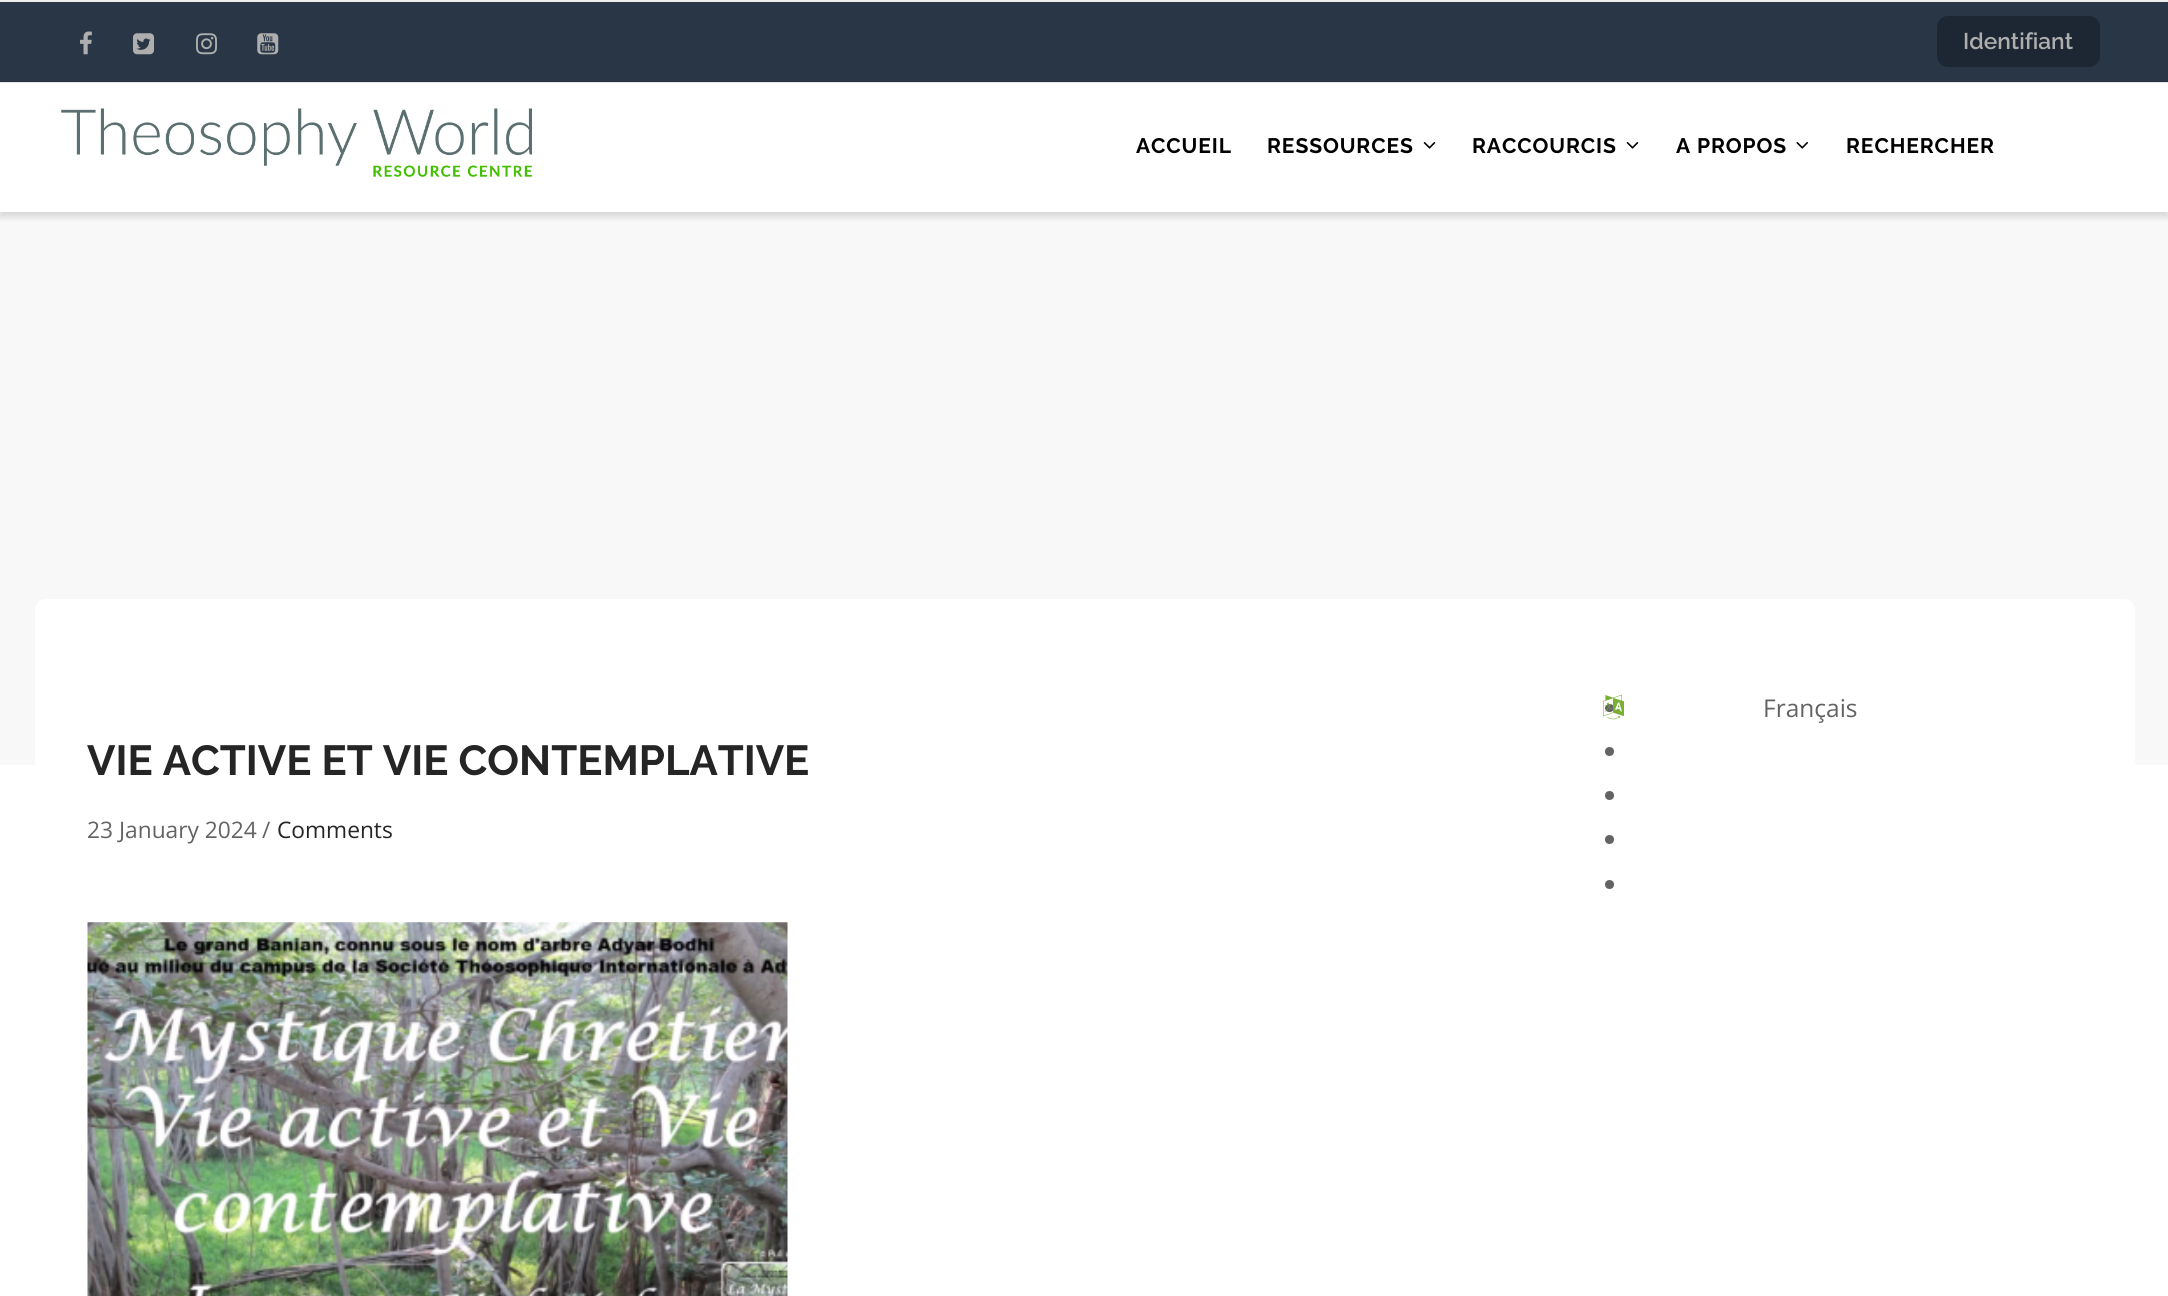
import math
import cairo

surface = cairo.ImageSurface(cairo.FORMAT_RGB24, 2168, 1296)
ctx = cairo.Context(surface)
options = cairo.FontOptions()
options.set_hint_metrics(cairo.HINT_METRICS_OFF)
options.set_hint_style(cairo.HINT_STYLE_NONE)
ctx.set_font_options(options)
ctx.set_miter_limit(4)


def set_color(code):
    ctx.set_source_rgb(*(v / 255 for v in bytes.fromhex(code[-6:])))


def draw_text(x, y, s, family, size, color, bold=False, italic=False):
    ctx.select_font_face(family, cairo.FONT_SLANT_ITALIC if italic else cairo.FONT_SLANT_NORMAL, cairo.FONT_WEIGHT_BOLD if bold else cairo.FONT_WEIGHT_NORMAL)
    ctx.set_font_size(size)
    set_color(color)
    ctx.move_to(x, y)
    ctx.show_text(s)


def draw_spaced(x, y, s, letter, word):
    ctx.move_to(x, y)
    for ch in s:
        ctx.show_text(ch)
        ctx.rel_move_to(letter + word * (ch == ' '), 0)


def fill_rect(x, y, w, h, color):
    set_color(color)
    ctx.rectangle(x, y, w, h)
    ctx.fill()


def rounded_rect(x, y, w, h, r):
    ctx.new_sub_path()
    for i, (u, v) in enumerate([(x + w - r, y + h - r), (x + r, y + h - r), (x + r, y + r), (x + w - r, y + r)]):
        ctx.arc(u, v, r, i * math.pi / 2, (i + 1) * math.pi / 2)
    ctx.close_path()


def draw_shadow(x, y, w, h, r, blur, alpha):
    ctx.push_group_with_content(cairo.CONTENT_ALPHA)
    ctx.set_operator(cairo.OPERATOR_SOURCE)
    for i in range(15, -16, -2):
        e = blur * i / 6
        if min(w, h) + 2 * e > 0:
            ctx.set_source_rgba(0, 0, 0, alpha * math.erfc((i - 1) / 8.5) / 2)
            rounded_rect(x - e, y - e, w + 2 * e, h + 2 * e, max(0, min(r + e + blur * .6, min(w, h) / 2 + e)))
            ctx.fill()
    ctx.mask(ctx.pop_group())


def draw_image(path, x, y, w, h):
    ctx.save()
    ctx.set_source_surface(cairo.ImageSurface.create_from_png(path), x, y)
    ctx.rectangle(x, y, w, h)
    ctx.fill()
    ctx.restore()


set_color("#efefef")
ctx.paint()
fill_rect(0, 765, 2168, 531, "#ffffff")
fill_rect(0, 212, 2168, 553, "#f8f8f8")
set_color("#000000")
draw_shadow(0, 7, 2168, 210, 0, 3.5, 0.14)
fill_rect(0, 83, 2168, 129, "#ffffff")
fill_rect(0, 82, 2168, 1, "#e6e6e6")
fill_rect(0, 2, 2168, 79, "#283646")
fill_rect(0, 81, 2168, 1, "#24313f")
draw_image("assets/img1.png", 80, 31, 12, 24)
draw_image("assets/img2.png", 133, 33, 21, 22)
draw_image("assets/img3.png", 196, 33, 21, 22)
draw_image("assets/img4.png", 257, 33, 22, 22)
set_color("#1c2733")
rounded_rect(1937, 16, 163, 51, 11)
ctx.fill()
draw_text(1963, 49, "Identifiant", "Raleway SemiBold", 22.75, "#aeaeae")
draw_image("assets/img5.png", 61, 108, 471, 69)
ctx.select_font_face("Raleway", cairo.FONT_SLANT_NORMAL, cairo.FONT_WEIGHT_BOLD)
ctx.set_font_size(21)
set_color("#000000")
draw_spaced(1136, 153, "ACCUEIL", 0.9, 0)
draw_spaced(1267, 153, "RESSOURCES", 0.9, 0)
draw_image("assets/img6.png", 1423, 142, 13, 7)
draw_spaced(1472, 153, "RACCOURCIS", 0.9, 0)
draw_image("assets/img6.png", 1626, 142, 13, 7)
draw_spaced(1676, 153, "A PROPOS", 0.9, 0)
draw_image("assets/img7.png", 1796, 142, 12, 7)
draw_spaced(1846, 153, "RECHERCHER", 0.9, 0)
set_color("#ffffff")
rounded_rect(35, 599, 2100, 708, 11)
ctx.fill()
set_color("#636363")
rounded_rect(1605, 704, 9, 8, 4)
ctx.fill()
draw_image("assets/img8.png", 1603, 694, 21, 26)
draw_text(1763, 717, "Français", "Open Sans", 24.5, "#636363")
ctx.new_path()
ctx.arc(1609.5, 751.5, 4.5, 0, 2 * math.pi)
ctx.fill()
ctx.arc(1609.5, 795.5, 4.5, 0, 2 * math.pi)
ctx.fill()
ctx.arc(1609.5, 839.5, 4.5, 0, 2 * math.pi)
ctx.fill()
ctx.arc(1609.5, 884.5, 4.5, 0, 2 * math.pi)
ctx.fill()
draw_text(87, 775, "VIE ACTIVE ET VIE CONTEMPLATIVE", "Raleway", 42, "#252525", bold=True)
draw_text(87, 838, "23 January 2024", "Open Sans", 22.75, "#636363")
draw_text(262, 838, "/", "Open Sans", 22.75, "#636363")
draw_text(277, 838, "Comments", "Open Sans", 22.75, "#252525")
draw_image("assets/img9.png", 87, 922, 701, 374)
surface.write_to_png("output.png")
